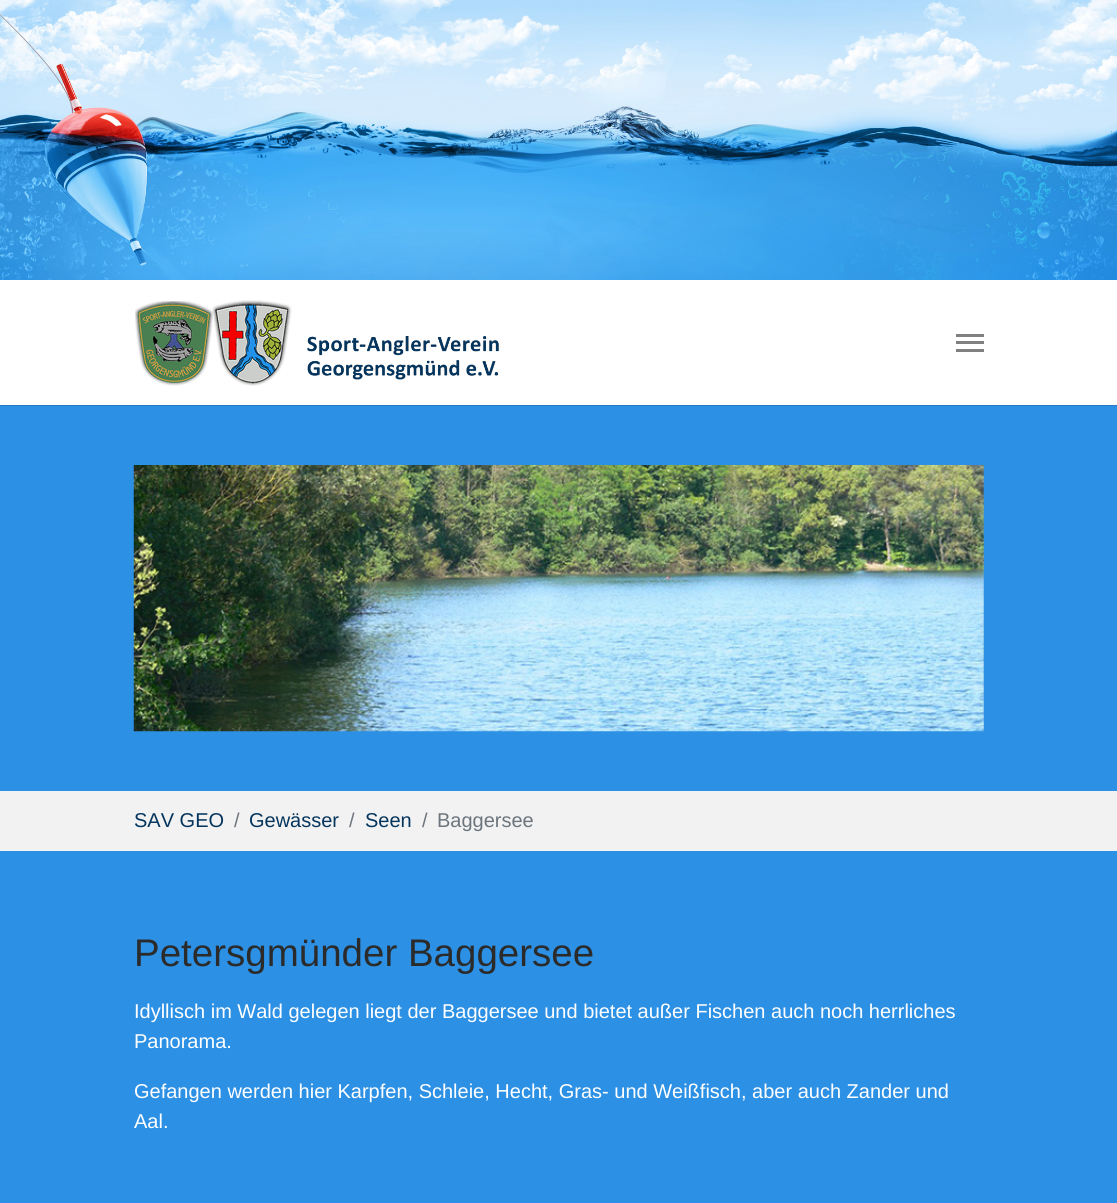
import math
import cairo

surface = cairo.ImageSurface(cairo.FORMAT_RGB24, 1117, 1203)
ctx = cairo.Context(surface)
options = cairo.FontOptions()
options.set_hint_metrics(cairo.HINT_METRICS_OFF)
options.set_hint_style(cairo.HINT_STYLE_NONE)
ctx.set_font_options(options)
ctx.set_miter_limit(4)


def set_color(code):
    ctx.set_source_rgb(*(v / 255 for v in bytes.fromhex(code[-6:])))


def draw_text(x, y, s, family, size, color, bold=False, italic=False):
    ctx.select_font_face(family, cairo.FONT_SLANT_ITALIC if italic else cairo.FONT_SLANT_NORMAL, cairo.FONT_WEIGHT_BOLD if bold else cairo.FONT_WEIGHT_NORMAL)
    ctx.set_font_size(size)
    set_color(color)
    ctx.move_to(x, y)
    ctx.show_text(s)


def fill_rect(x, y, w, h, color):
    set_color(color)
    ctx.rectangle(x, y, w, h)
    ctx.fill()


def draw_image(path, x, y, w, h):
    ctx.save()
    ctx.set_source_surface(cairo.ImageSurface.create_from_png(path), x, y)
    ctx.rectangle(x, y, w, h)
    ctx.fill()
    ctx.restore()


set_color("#2c90e5")
ctx.paint()
draw_image("assets/img1.png", 0, 0, 1117, 280)
set_color("#257ac3")
ctx.new_path()
ctx.move_to(0, 405)
ctx.line_to(0, 406)
ctx.line_to(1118, 406)
ctx.line_to(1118, 281)
ctx.line_to(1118, 405)
ctx.close_path()
ctx.fill()
fill_rect(0, 280, 1117, 125, "#ffffff")
draw_image("assets/img2.png", 135, 300, 364, 86)
fill_rect(956, 341, 28, 3, "#808080")
fill_rect(956, 334, 28, 3, "#808080")
fill_rect(956, 349, 28, 3, "#808080")
draw_image("assets/img3.png", 133, 465, 851, 267)
fill_rect(0, 791, 1117, 60, "#f2f2f2")
draw_text(134, 827, "SAV GEO", "Liberation Sans", 20, "#05355d")
draw_text(234, 827, "/", "Liberation Sans", 20, "#6c757d")
draw_text(249, 827, "Gewässer", "Liberation Sans", 20, "#05355d")
draw_text(349, 827, "/", "Liberation Sans", 20, "#6c757d")
draw_text(365, 827, "Seen", "Liberation Sans", 20, "#05355d")
draw_text(422, 827, "/", "Liberation Sans", 20, "#6c757d")
draw_text(437, 827, "Baggersee", "Liberation Sans", 20, "#6c757d")
draw_text(134, 966, "Petersgmünder Baggersee", "Liberation Sans", 38.5, "#2b2b2b")
draw_text(134, 1018, "Idyllisch im Wald gelegen liegt der Baggersee und bietet außer Fischen auch noch herrliches", "Liberation Sans", 20, "#ffffff")
draw_text(134, 1048, "Panorama.", "Liberation Sans", 20, "#ffffff")
draw_text(134, 1098, "Gefangen werden hier Karpfen, Schleie, Hecht, Gras- und Weißfisch, aber auch Zander und", "Liberation Sans", 20, "#ffffff")
draw_text(134, 1128, "Aal.", "Liberation Sans", 20, "#ffffff")
surface.write_to_png("output.png")
